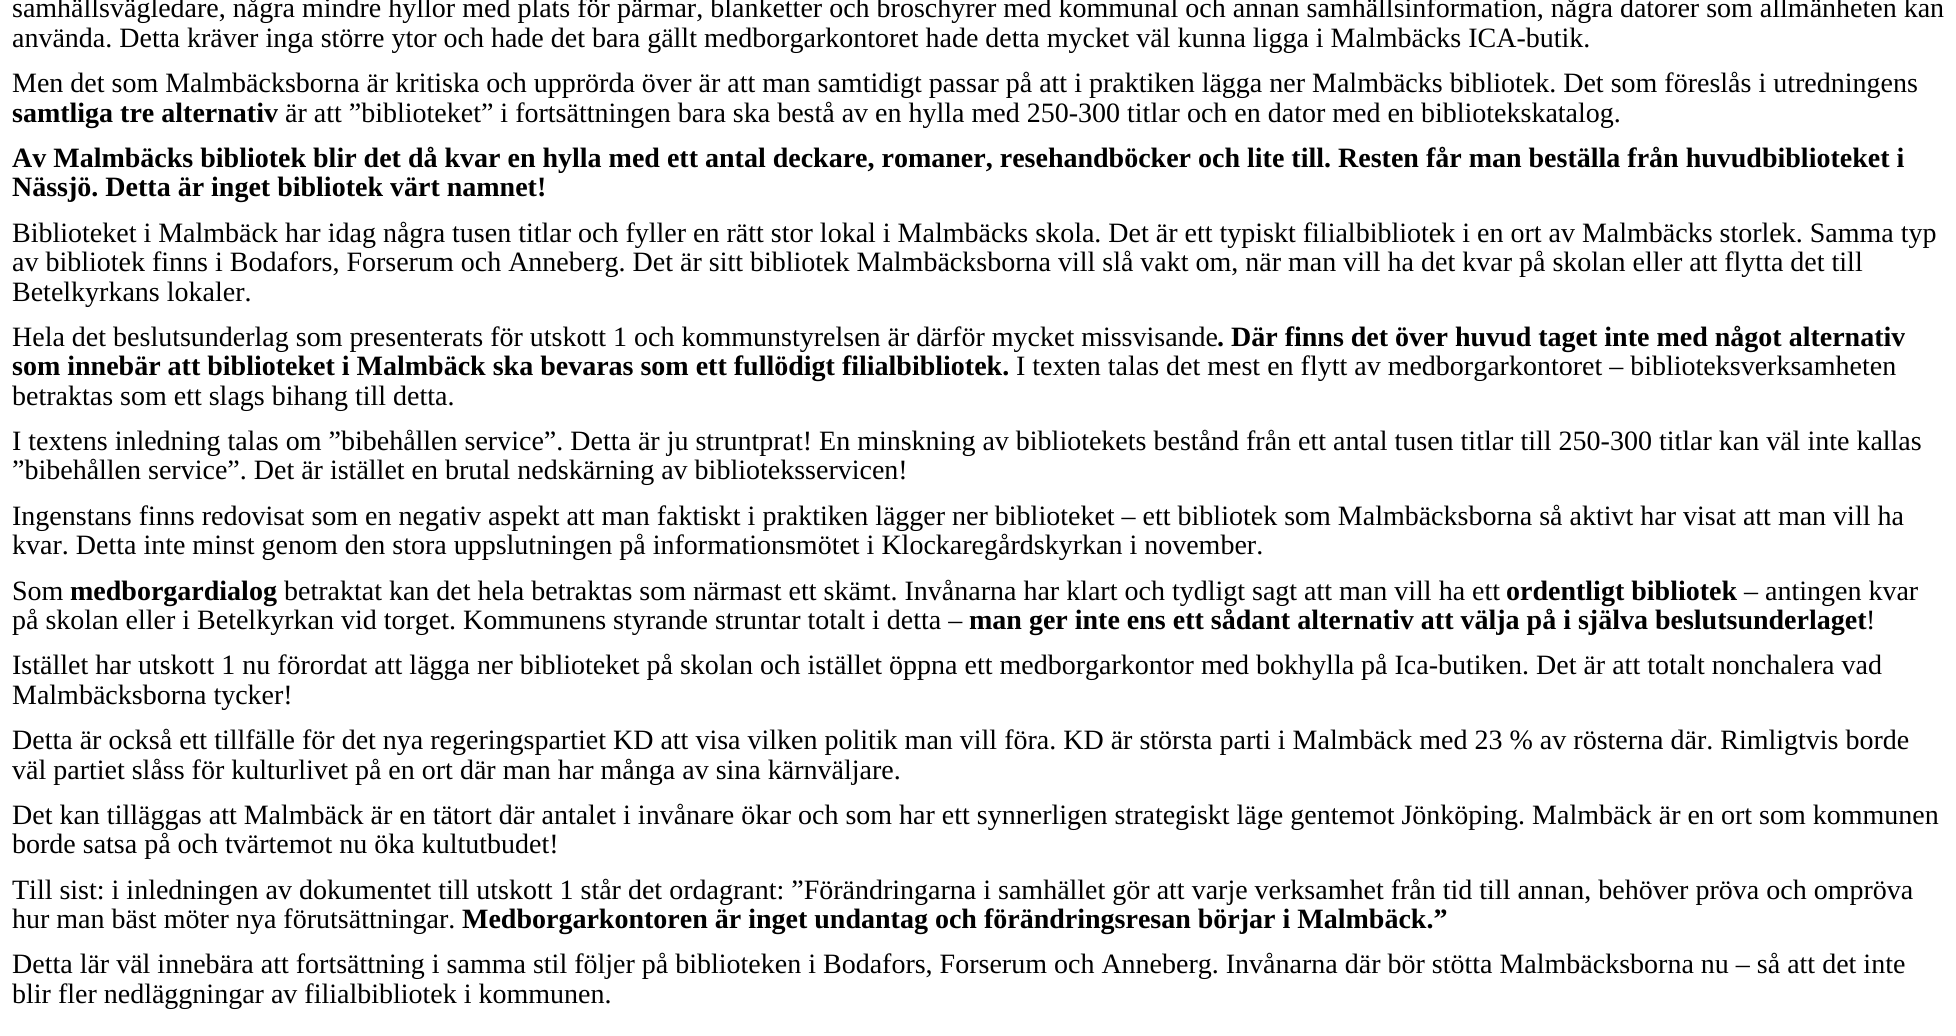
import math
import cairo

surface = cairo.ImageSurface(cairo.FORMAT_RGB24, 1956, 1036)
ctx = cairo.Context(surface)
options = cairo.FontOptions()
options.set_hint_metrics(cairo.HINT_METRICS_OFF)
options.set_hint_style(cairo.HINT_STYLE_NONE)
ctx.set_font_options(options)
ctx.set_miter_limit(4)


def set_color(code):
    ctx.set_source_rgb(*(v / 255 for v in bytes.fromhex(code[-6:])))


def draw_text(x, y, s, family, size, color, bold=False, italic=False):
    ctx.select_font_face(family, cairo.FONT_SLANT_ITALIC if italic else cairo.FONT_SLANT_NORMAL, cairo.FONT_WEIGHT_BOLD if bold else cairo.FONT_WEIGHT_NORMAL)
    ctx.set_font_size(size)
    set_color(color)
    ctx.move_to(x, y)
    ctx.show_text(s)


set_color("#ffffff")
ctx.paint()
draw_text(12, 17, "samhällsvägledare, några mindre hyllor med plats för pärmar, blanketter och broschyrer med kommunal och annan samhällsinformation, några datorer som allmänheten kan", "Liberation Serif", 28, "#000000")
draw_text(12, 47, "använda. Detta kräver inga större ytor och hade det bara gällt medborgarkontoret hade detta mycket väl kunna ligga i Malmbäcks ICA-butik.", "Liberation Serif", 28, "#000000")
draw_text(12, 92, "Men det som Malmbäcksborna är kritiska och upprörda över är att man samtidigt passar på att i praktiken lägga ner Malmbäcks bibliotek. Det som föreslås i utredningens", "Liberation Serif", 28, "#000000")
draw_text(12, 122, "samtliga tre alternativ", "Liberation Serif", 28, "#000000", bold=True)
draw_text(285, 122, "är att ”biblioteket” i fortsättningen bara ska bestå av en hylla med 250-300 titlar och en dator med en bibliotekskatalog.", "Liberation Serif", 28, "#000000")
draw_text(12, 167, "Av Malmbäcks bibliotek blir det då kvar en hylla med ett antal deckare, romaner, resehandböcker och lite till. Resten får man beställa från huvudbiblioteket i", "Liberation Serif", 28, "#000000", bold=True)
draw_text(12, 196, "Nässjö. Detta är inget bibliotek värt namnet!", "Liberation Serif", 28, "#000000", bold=True)
draw_text(12, 242, "Biblioteket i Malmbäck har idag några tusen titlar och fyller en rätt stor lokal i Malmbäcks skola. Det är ett typiskt filialbibliotek i en ort av Malmbäcks storlek. Samma typ", "Liberation Serif", 28, "#000000")
draw_text(12, 271, "av bibliotek finns i Bodafors, Forserum och Anneberg. Det är sitt bibliotek Malmbäcksborna vill slå vakt om, när man vill ha det kvar på skolan eller att flytta det till", "Liberation Serif", 28, "#000000")
draw_text(12, 301, "Betelkyrkans lokaler.", "Liberation Serif", 28, "#000000")
draw_text(12, 346, "Hela det beslutsunderlag som presenterats för utskott 1 och kommunstyrelsen är därför mycket missvisande", "Liberation Serif", 28, "#000000")
draw_text(1217, 346, ". Där finns det över huvud taget inte med något alternativ", "Liberation Serif", 28, "#000000", bold=True)
draw_text(12, 375, "som innebär att biblioteket i Malmbäck ska bevaras som ett fullödigt filialbibliotek.", "Liberation Serif", 28, "#000000", bold=True)
draw_text(1016, 375, "I texten talas det mest en flytt av medborgarkontoret – biblioteksverksamheten", "Liberation Serif", 28, "#000000")
draw_text(12, 405, "betraktas som ett slags bihang till detta.", "Liberation Serif", 28, "#000000")
draw_text(12, 450, "I textens inledning talas om ”bibehållen service”. Detta är ju struntprat! En minskning av bibliotekets bestånd från ett antal tusen titlar till 250-300 titlar kan väl inte kallas", "Liberation Serif", 28, "#000000")
draw_text(12, 479, "”bibehållen service”. Det är istället en brutal nedskärning av biblioteksservicen!", "Liberation Serif", 28, "#000000")
draw_text(12, 525, "Ingenstans finns redovisat som en negativ aspekt att man faktiskt i praktiken lägger ner biblioteket – ett bibliotek som Malmbäcksborna så aktivt har visat att man vill ha", "Liberation Serif", 28, "#000000")
draw_text(12, 554, "kvar. Detta inte minst genom den stora uppslutningen på informationsmötet i Klockaregårdskyrkan i november.", "Liberation Serif", 28, "#000000")
draw_text(12, 600, "Som", "Liberation Serif", 28, "#000000")
draw_text(70, 600, "medborgardialog", "Liberation Serif", 28, "#000000", bold=True)
draw_text(284, 600, "betraktat kan det hela betraktas som närmast ett skämt. Invånarna har klart och tydligt sagt att man vill ha ett", "Liberation Serif", 28, "#000000")
draw_text(1506, 600, "ordentligt bibliotek", "Liberation Serif", 28, "#000000", bold=True)
draw_text(1744, 600, "– antingen kvar", "Liberation Serif", 28, "#000000")
draw_text(12, 629, "på skolan eller i Betelkyrkan vid torget. Kommunens styrande struntar totalt i detta –", "Liberation Serif", 28, "#000000")
draw_text(969, 629, "man ger inte ens ett sådant alternativ att välja på i själva beslutsunderlaget", "Liberation Serif", 28, "#000000", bold=True)
draw_text(1866, 629, "!", "Liberation Serif", 28, "#000000")
draw_text(12, 674, "Istället har utskott 1 nu förordat att lägga ner biblioteket på skolan och istället öppna ett medborgarkontor med bokhylla på Ica-butiken. Det är att totalt nonchalera vad", "Liberation Serif", 28, "#000000")
draw_text(12, 704, "Malmbäcksborna tycker!", "Liberation Serif", 28, "#000000")
draw_text(12, 749, "Detta är också ett tillfälle för det nya regeringspartiet KD att visa vilken politik man vill föra. KD är största parti i Malmbäck med 23 % av rösterna där. Rimligtvis borde", "Liberation Serif", 28, "#000000")
draw_text(12, 779, "väl partiet slåss för kulturlivet på en ort där man har många av sina kärnväljare.", "Liberation Serif", 28, "#000000")
draw_text(12, 824, "Det kan tilläggas att Malmbäck är en tätort där antalet i invånare ökar och som har ett synnerligen strategiskt läge gentemot Jönköping. Malmbäck är en ort som kommunen", "Liberation Serif", 28, "#000000")
draw_text(12, 853, "borde satsa på och tvärtemot nu öka kultutbudet!", "Liberation Serif", 28, "#000000")
draw_text(12, 899, "Till sist: i inledningen av dokumentet till utskott 1 står det ordagrant: ”Förändringarna i samhället gör att varje verksamhet från tid till annan, behöver pröva och ompröva", "Liberation Serif", 28, "#000000")
draw_text(12, 928, "hur man bäst möter nya förutsättningar.", "Liberation Serif", 28, "#000000")
draw_text(462, 928, "Medborgarkontoren är inget undantag och förändringsresan börjar i Malmbäck.”", "Liberation Serif", 28, "#000000", bold=True)
draw_text(12, 973, "Detta lär väl innebära att fortsättning i samma stil följer på biblioteken i Bodafors, Forserum och Anneberg. Invånarna där bör stötta Malmbäcksborna nu – så att det inte", "Liberation Serif", 28, "#000000")
draw_text(12, 1003, "blir fler nedläggningar av filialbibliotek i kommunen.", "Liberation Serif", 28, "#000000")
surface.write_to_png("output.png")
